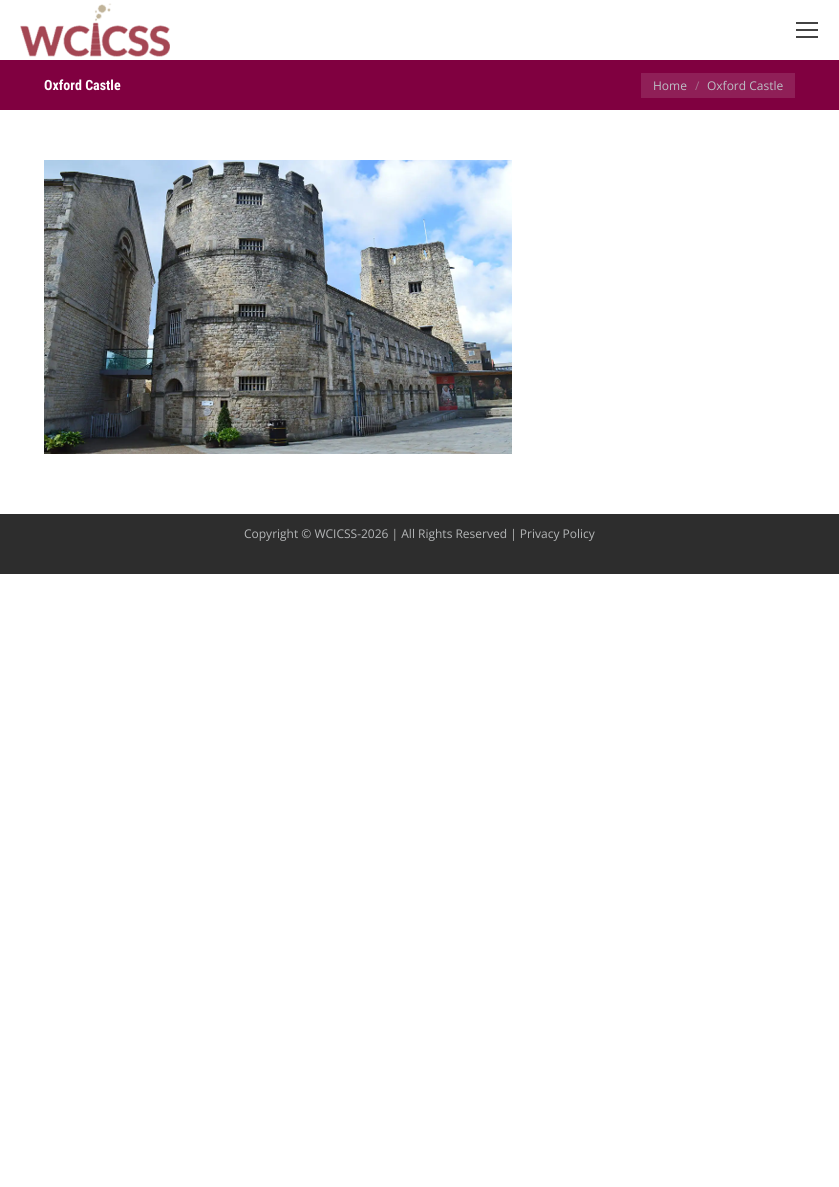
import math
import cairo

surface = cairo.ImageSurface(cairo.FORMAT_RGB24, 839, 1187)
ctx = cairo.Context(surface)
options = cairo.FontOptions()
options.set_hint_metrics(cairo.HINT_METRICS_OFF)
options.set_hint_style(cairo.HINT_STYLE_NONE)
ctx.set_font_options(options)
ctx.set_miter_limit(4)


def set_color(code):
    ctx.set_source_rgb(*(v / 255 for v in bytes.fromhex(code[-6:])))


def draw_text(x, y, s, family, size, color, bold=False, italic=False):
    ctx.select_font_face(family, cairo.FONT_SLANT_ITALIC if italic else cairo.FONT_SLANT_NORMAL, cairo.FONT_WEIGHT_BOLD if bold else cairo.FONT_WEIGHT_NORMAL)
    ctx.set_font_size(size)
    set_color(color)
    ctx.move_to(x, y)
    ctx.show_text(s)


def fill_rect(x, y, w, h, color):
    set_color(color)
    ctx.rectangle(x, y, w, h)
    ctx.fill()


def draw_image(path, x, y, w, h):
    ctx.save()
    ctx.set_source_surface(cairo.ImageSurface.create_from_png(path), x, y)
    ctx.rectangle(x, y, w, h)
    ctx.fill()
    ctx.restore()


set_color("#ffffff")
ctx.paint()
draw_image("assets/img1.png", 20, 3, 150, 54)
fill_rect(796, 29, 22, 2, "#424242")
fill_rect(796, 22, 22, 2, "#424242")
fill_rect(796, 36, 22, 2, "#424242")
fill_rect(0, 60, 839, 50, "#800040")
draw_text(44, 90, "Oxford Castle", "Roboto Condensed", 14, "#ffffff", bold=True)
fill_rect(641, 73, 154, 25, "#8f1f57")
draw_text(653, 90, "Home", "Open Sans", 12, "#bcbfc5")
draw_text(695, 90, "/", "Open Sans", 12, "#a66f8e")
draw_text(707, 90, "Oxford Castle", "Open Sans", 12, "#bcbfc5")
draw_image("assets/img2.png", 44, 160, 468, 294)
fill_rect(0, 514, 839, 60, "#2d2d2d")
draw_text(244, 538, "Copyright © WCICSS-2026 | All Rights Reserved | Privacy Policy", "Open Sans", 12, "#b3b5b6")
surface.write_to_png("output.png")
